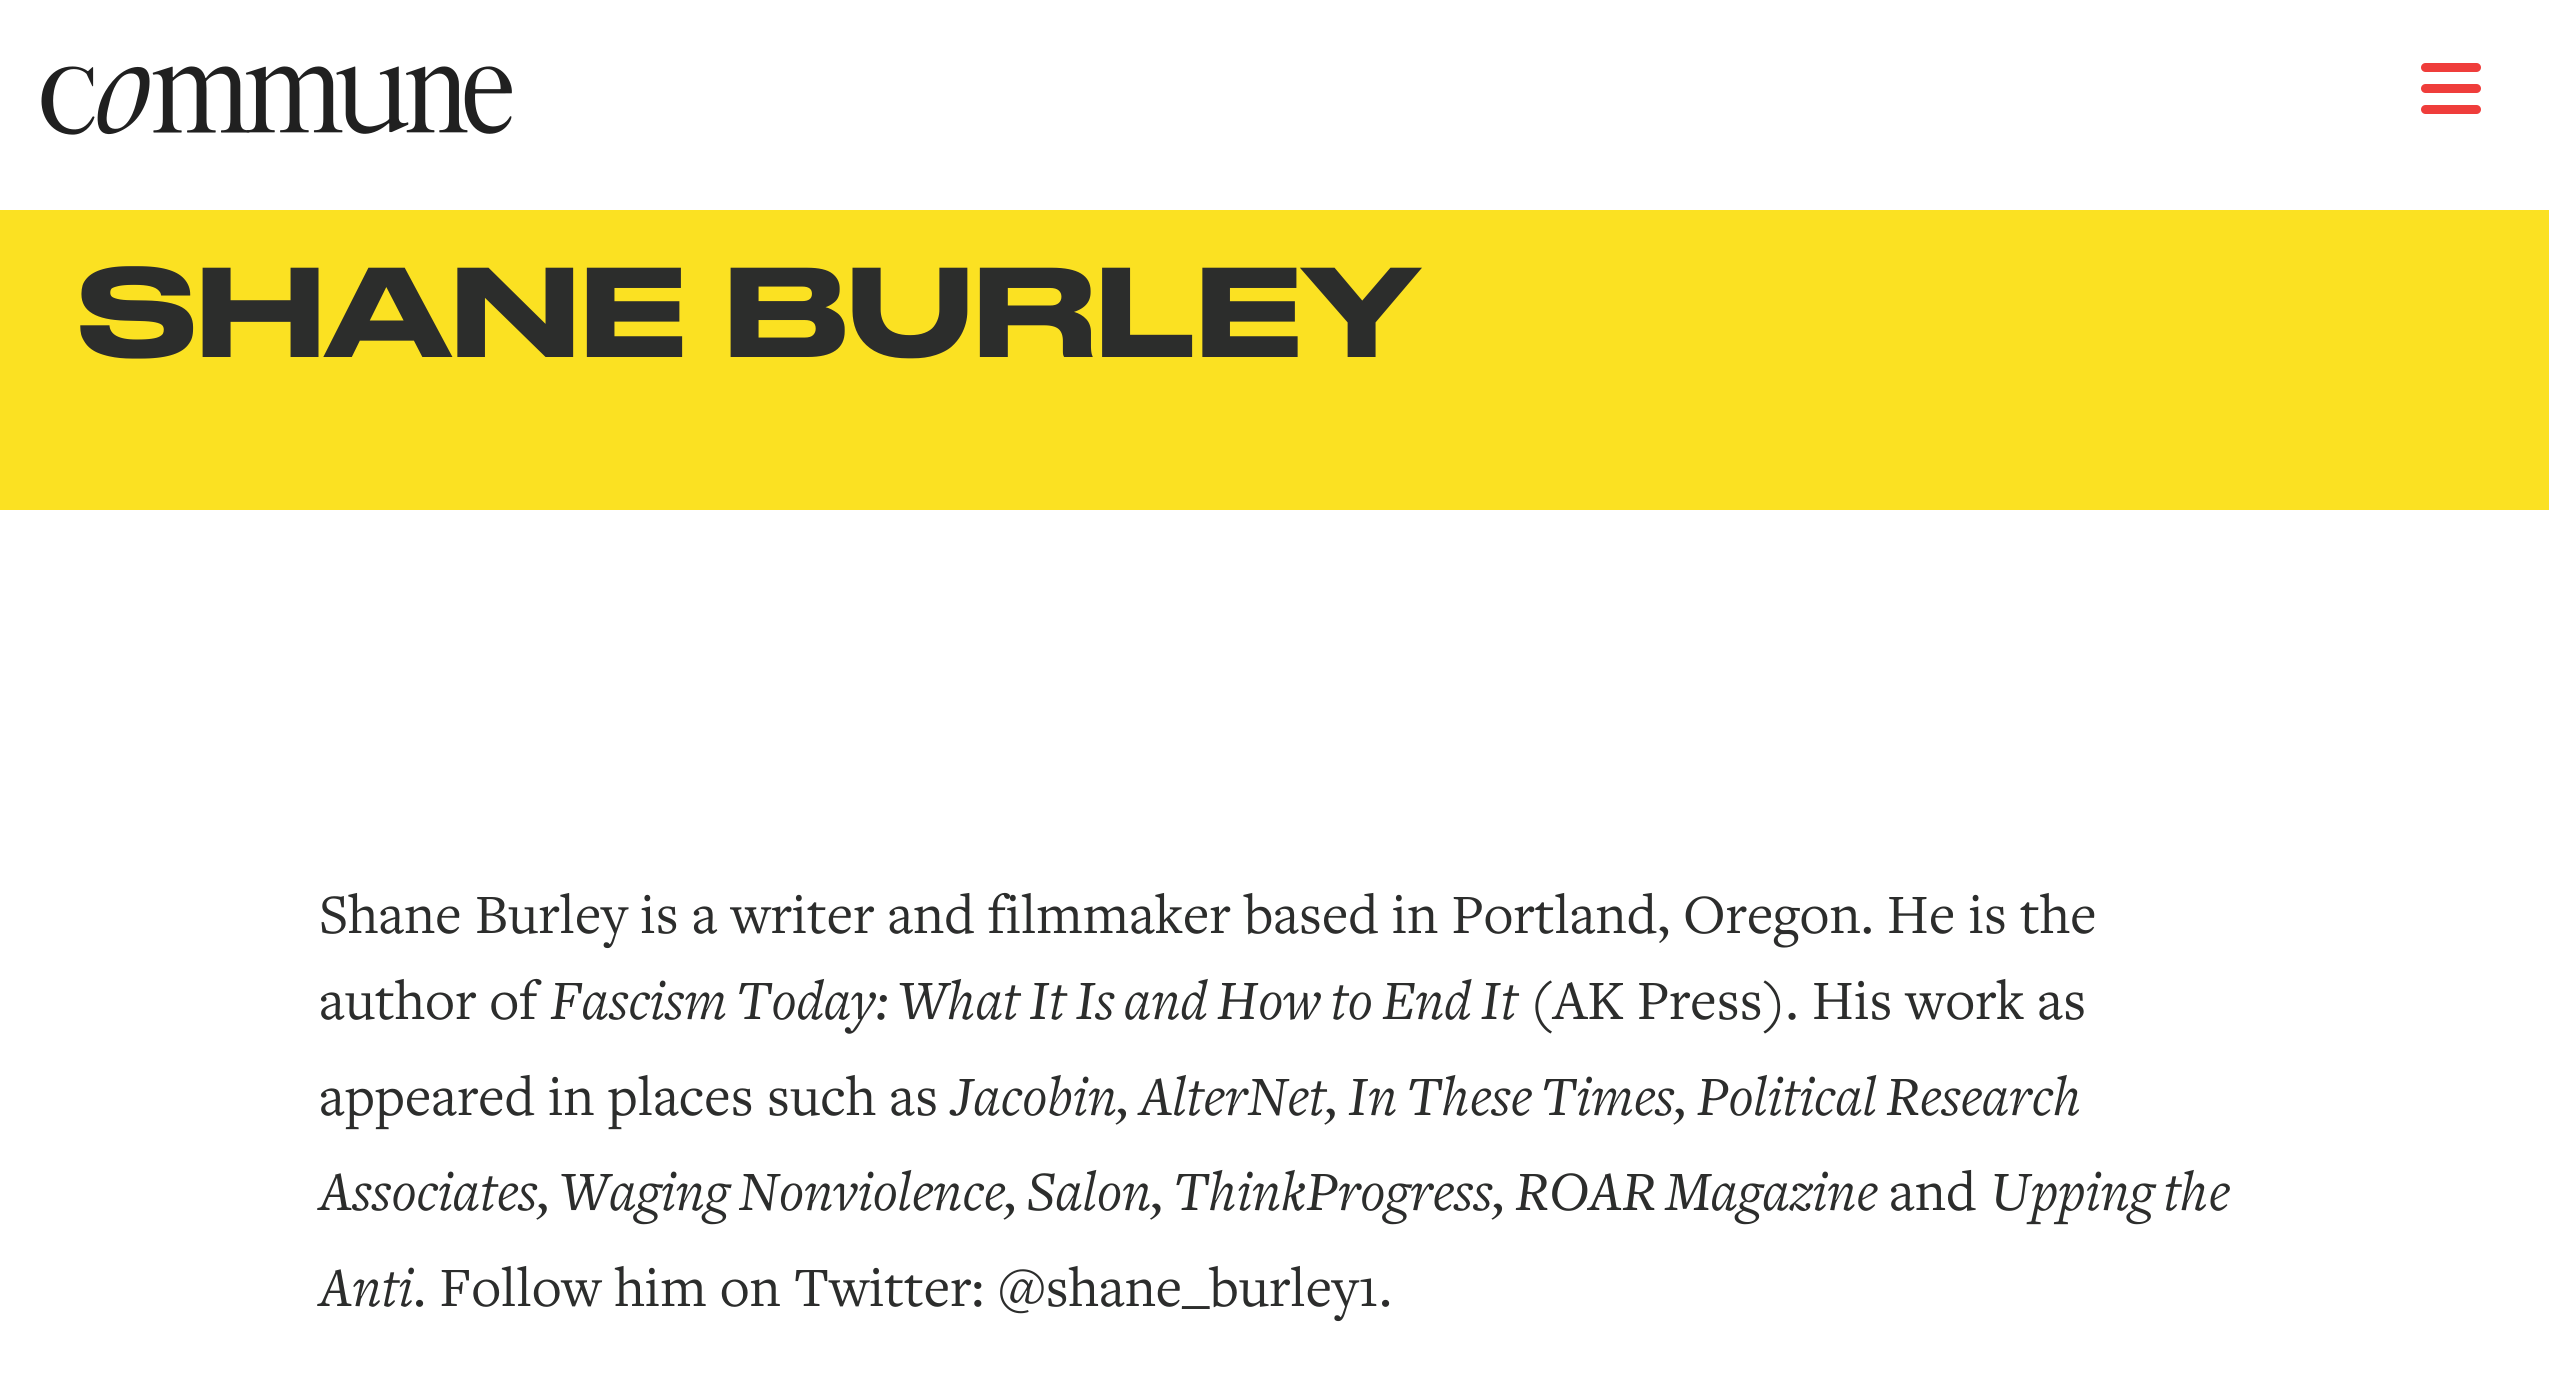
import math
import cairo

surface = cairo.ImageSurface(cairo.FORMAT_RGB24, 2549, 1386)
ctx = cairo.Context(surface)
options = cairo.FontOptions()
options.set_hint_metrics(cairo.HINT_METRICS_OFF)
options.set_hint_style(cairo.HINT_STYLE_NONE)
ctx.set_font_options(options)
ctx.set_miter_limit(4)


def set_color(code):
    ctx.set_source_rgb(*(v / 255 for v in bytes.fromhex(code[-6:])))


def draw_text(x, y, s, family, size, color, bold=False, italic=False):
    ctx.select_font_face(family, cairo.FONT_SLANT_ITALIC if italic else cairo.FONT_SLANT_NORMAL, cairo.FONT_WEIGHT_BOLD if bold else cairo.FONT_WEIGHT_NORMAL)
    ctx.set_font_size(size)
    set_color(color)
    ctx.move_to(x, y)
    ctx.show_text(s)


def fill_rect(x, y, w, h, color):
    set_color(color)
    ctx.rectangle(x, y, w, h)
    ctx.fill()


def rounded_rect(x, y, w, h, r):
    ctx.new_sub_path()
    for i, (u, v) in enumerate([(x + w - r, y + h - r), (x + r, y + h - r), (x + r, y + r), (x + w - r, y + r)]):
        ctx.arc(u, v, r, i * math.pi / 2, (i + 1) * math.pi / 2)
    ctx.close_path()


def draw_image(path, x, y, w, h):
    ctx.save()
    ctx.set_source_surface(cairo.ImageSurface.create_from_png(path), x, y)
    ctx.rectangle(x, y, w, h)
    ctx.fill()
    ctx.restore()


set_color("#ffffff")
ctx.paint()
draw_image("assets/img1.png", 41, 66, 471, 69)
set_color("#ef3d3b")
rounded_rect(2421, 84, 60, 9, 4.5)
ctx.fill()
rounded_rect(2421, 63, 60, 9, 4.5)
ctx.fill()
rounded_rect(2421, 105, 60, 9, 4.5)
ctx.fill()
fill_rect(0, 210, 2549, 300, "#fbe122")
draw_text(78, 357, "SHANE BURLEY", "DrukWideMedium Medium", 120, "#2c2d2c")
draw_text(319, 933, "Shane Burley is a writer and filmmaker based in Portland, Oregon. He is the", "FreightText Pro", 57.6, "#2c2d2c")
draw_text(319, 1019, "author of", "FreightText Pro", 57.6, "#2c2d2c")
draw_text(550, 1019, "Fascism Today: What It Is and How to End It", "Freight", 57.6, "#2c2d2c", italic=True)
draw_text(1530, 1019, "(AK Press). His work as", "FreightText Pro", 57.6, "#2c2d2c")
draw_text(319, 1115, "appeared in places such as", "FreightText Pro", 57.6, "#2c2d2c")
draw_text(951, 1115, "Jacobin, AlterNet, In These Times, Political Research", "Freight", 57.6, "#2c2d2c", italic=True)
draw_text(319, 1210, "Associates, Waging Nonviolence, Salon, ThinkProgress, ROAR Magazine", "Freight", 57.6, "#2c2d2c", italic=True)
draw_text(1889, 1210, "and", "FreightText Pro", 57.6, "#2c2d2c")
draw_text(1990, 1210, "Upping the", "Freight", 57.6, "#2c2d2c", italic=True)
draw_text(319, 1306, "Anti", "Freight", 57.6, "#2c2d2c", italic=True)
draw_text(413, 1306, ". Follow him on Twitter: @shane_burley1.", "FreightText Pro", 57.6, "#2c2d2c")
surface.write_to_png("output.png")
